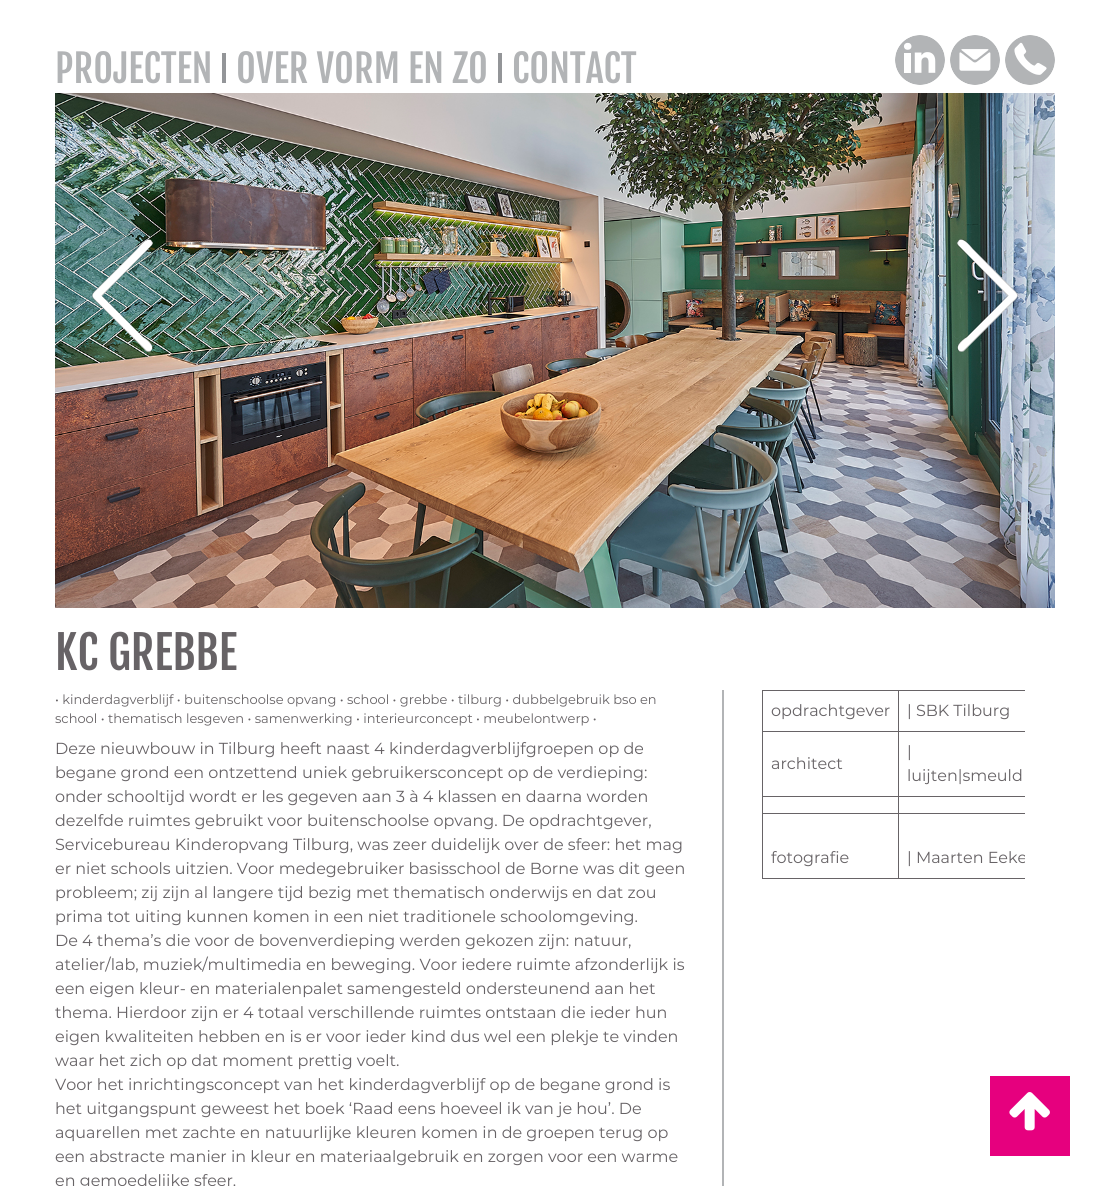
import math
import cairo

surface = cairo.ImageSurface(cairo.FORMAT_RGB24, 1110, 1186)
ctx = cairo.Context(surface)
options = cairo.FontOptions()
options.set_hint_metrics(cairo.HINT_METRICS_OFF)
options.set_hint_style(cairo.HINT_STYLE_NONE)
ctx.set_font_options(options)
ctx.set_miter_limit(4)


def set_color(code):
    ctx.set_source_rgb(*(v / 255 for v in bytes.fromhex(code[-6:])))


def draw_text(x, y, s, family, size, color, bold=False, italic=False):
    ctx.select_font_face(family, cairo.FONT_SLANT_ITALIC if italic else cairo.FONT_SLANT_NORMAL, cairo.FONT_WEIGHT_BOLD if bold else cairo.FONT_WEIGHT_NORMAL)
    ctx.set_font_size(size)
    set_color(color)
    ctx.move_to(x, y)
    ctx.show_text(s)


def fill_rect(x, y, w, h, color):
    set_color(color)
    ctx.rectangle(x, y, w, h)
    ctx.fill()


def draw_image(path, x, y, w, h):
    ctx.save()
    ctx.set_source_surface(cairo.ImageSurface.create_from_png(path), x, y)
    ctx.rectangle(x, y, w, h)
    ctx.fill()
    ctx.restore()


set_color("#ffffff")
ctx.paint()
draw_text(55, 83, "PROJECTEN", "Fjalla One", 38, "#b2b4b6")
fill_rect(222, 53, 4, 30, "#939598")
draw_text(236, 83, "OVER VORM EN ZO", "Fjalla One", 38, "#b2b4b6")
fill_rect(498, 53, 4, 30, "#939598")
draw_text(512, 83, "CONTACT", "Fjalla One", 38, "#b2b4b6")
draw_image("assets/img1.png", 895, 35, 50, 50)
draw_image("assets/img2.png", 950, 35, 50, 50)
draw_image("assets/img3.png", 1005, 35, 50, 50)
draw_image("assets/img4.png", 55, 93, 1000, 515)
set_color("#ffffff")
ctx.new_path()
ctx.move_to(146, 351)
ctx.curve_to(147, 352, 150, 352, 151, 351)
ctx.curve_to(156, 345, 145, 338, 143, 337)
ctx.line_to(102, 296)
ctx.line_to(152, 245)
ctx.line_to(153, 243)
ctx.line_to(151, 240)
ctx.curve_to(146, 237, 138, 248, 137, 249)
ctx.line_to(102, 284)
ctx.curve_to(89, 297, 89, 294, 102, 307)
ctx.close_path()
ctx.fill()
ctx.new_path()
ctx.move_to(146, 350.5)
ctx.curve_to(147.5, 352, 150, 352, 151.5, 350.5)
ctx.curve_to(156, 345.5, 145, 338.5, 143, 336.5)
ctx.line_to(102, 295.5)
ctx.line_to(152, 245.5)
ctx.line_to(152.5, 242.5)
ctx.line_to(151, 240)
ctx.curve_to(145.5, 236.5, 138, 248.5, 137, 249)
ctx.line_to(102, 284)
ctx.curve_to(89, 297, 89, 294, 102, 307)
ctx.close_path()
ctx.set_source_rgba(0, 0, 0, 0.2)
ctx.set_line_width(1)
ctx.stroke()
set_color("#ffffff")
ctx.new_path()
ctx.move_to(964, 351)
ctx.curve_to(963, 352, 960, 352, 959, 351)
ctx.curve_to(954, 345, 965, 338, 967, 337)
ctx.line_to(1008, 296)
ctx.line_to(958, 245)
ctx.line_to(957, 243)
ctx.line_to(959, 240)
ctx.curve_to(964, 237, 972, 248, 973, 249)
ctx.line_to(1008, 284)
ctx.curve_to(1021, 297, 1021, 294, 1008, 307)
ctx.close_path()
ctx.fill()
ctx.new_path()
ctx.move_to(964, 350.5)
ctx.curve_to(962.5, 352, 960, 352, 958.5, 350.5)
ctx.curve_to(954, 345.5, 965, 338.5, 967, 336.5)
ctx.line_to(1008, 295.5)
ctx.line_to(958, 245.5)
ctx.line_to(957.5, 242.5)
ctx.line_to(959, 240)
ctx.curve_to(964.5, 236.5, 972, 248.5, 973, 249)
ctx.line_to(1007.5, 284)
ctx.curve_to(1021, 297, 1021, 294, 1007.5, 307)
ctx.close_path()
ctx.set_source_rgba(0, 0, 0, 0.2)
ctx.stroke()
draw_text(55, 670, "KC GREBBE", "Fjalla One", 45.5, "#676366")
draw_text(55, 704, "• kinderdagverblijf • buitenschoolse opvang • school • grebbe • tilburg • dubbelgebruik bso en", "Montserrat", 13, "#676366")
draw_text(55, 723, "school • thematisch lesgeven • samenwerking • interieurconcept • meubelontwerp •", "Montserrat", 13, "#676366")
draw_text(55, 754, "Deze nieuwbouw in Tilburg heeft naast 4 kinderdagverblijfgroepen op de", "Montserrat", 16, "#676366")
draw_text(55, 778, "begane grond een ontzettend uniek gebruikersconcept op de verdieping:", "Montserrat", 16, "#676366")
draw_text(55, 802, "onder schooltijd wordt er les gegeven aan 3 à 4 klassen en daarna worden", "Montserrat", 16, "#676366")
draw_text(55, 826, "dezelfde ruimtes gebruikt voor buitenschoolse opvang. De opdrachtgever,", "Montserrat", 16, "#676366")
draw_text(55, 850, "Servicebureau Kinderopvang Tilburg, was zeer duidelijk over de sfeer: het mag", "Montserrat", 16, "#676366")
draw_text(55, 874, "er niet schools uitzien. Voor medegebruiker basisschool de Borne was dit geen", "Montserrat", 16, "#676366")
draw_text(55, 898, "probleem; zij zijn al langere tijd bezig met thematisch onderwijs en dat zou", "Montserrat", 16, "#676366")
draw_text(55, 922, "prima tot uiting kunnen komen in een niet traditionele schoolomgeving.", "Montserrat", 16, "#676366")
draw_text(55, 946, "De 4 thema’s die voor de bovenverdieping werden gekozen zijn: natuur,", "Montserrat", 16, "#676366")
draw_text(55, 970, "atelier/lab, muziek/multimedia en beweging. Voor iedere ruimte afzonderlijk is", "Montserrat", 16, "#676366")
draw_text(55, 994, "een eigen kleur- en materialenpalet samengesteld ondersteunend aan het", "Montserrat", 16, "#676366")
draw_text(55, 1018, "thema. Hierdoor zijn er 4 totaal verschillende ruimtes ontstaan die ieder hun", "Montserrat", 16, "#676366")
draw_text(55, 1042, "eigen kwaliteiten hebben en is er voor ieder kind dus wel een plekje te vinden", "Montserrat", 16, "#676366")
draw_text(55, 1066, "waar het zich op dat moment prettig voelt.", "Montserrat", 16, "#676366")
draw_text(55, 1090, "Voor het inrichtingsconcept van het kinderdagverblijf op de begane grond is", "Montserrat", 16, "#676366")
draw_text(55, 1114, "het uitgangspunt geweest het boek ‘Raad eens hoeveel ik van je hou’. De", "Montserrat", 16, "#676366")
draw_text(55, 1138, "aquarellen met zachte en natuurlijke kleuren komen in de groepen terug op", "Montserrat", 16, "#676366")
draw_text(55, 1162, "een abstracte manier in kleur en materiaalgebruik en zorgen voor een warme", "Montserrat", 16, "#676366")
draw_text(55, 1186, "en gemoedelijke sfeer.", "Montserrat", 16, "#676366")
fill_rect(722, 690, 2, 496, "#b2b4b6")
fill_rect(898, 690, 127, 1, "#676366")
fill_rect(898, 731, 127, 1, "#676366")
fill_rect(898, 796, 127, 1, "#676366")
fill_rect(898, 813, 127, 1, "#676366")
fill_rect(898, 878, 127, 1, "#676366")
fill_rect(898, 813, 1, 66, "#676366")
fill_rect(762, 813, 137, 1, "#676366")
fill_rect(898, 796, 1, 18, "#676366")
fill_rect(762, 796, 137, 1, "#676366")
fill_rect(898, 731, 1, 66, "#676366")
fill_rect(762, 731, 137, 1, "#676366")
fill_rect(898, 690, 1, 42, "#676366")
fill_rect(762, 690, 137, 1, "#676366")
fill_rect(762, 878, 137, 1, "#676366")
fill_rect(762, 813, 1, 66, "#676366")
fill_rect(762, 796, 1, 18, "#676366")
fill_rect(762, 731, 1, 66, "#676366")
fill_rect(762, 690, 1, 42, "#676366")
draw_text(771, 716, "opdrachtgever", "Montserrat", 16, "#676366")
draw_text(907, 716, "| SBK Tilburg", "Montserrat", 16, "#676366")
draw_text(771, 769, "architect", "Montserrat", 16, "#676366")
draw_text(907, 757, "|", "Montserrat", 16, "#676366")
draw_text(907, 781, "luijten|smeuld", "Montserrat", 16, "#676366")
draw_text(771, 863, "fotografie", "Montserrat", 16, "#676366")
ctx.save()
ctx.rectangle(762, 690, 263, 189)
ctx.clip()
draw_text(907, 863, "| Maarten Eeke", "Montserrat", 16, "#676366")
ctx.restore()
fill_rect(990, 1076, 80, 80, "#e6007e")
draw_image("assets/img5.png", 1009, 1092, 41, 39)
surface.write_to_png("output.png")
